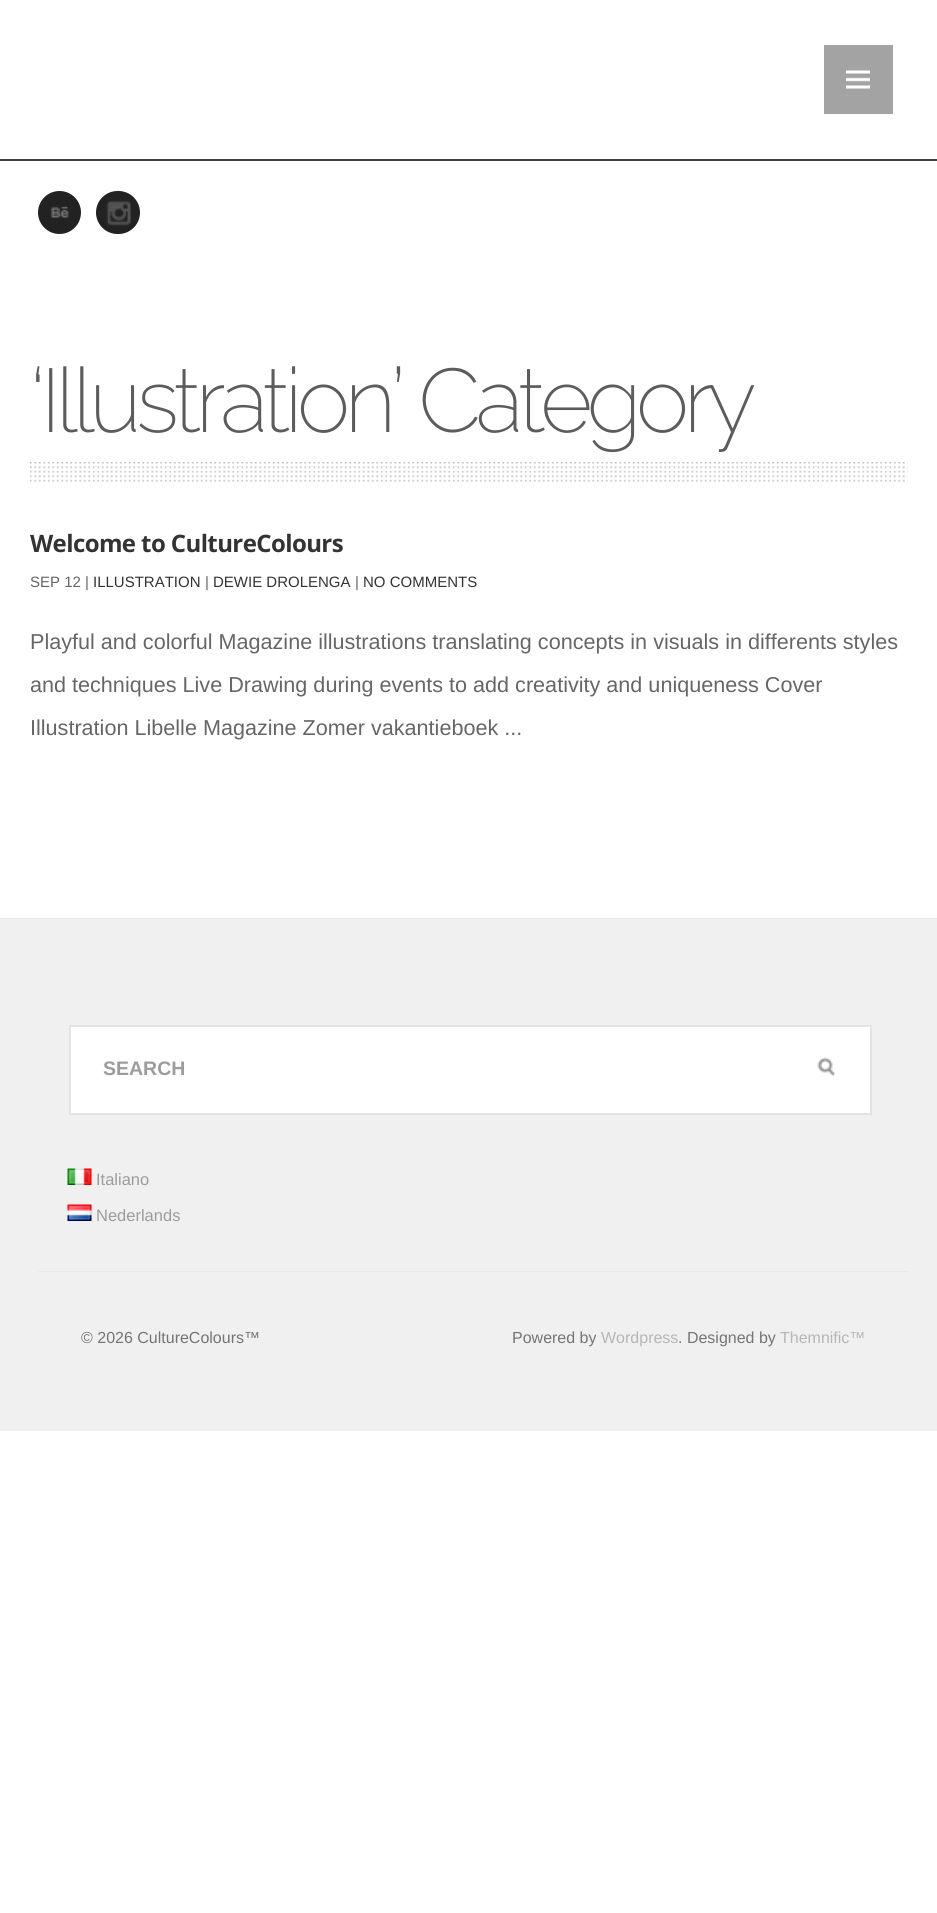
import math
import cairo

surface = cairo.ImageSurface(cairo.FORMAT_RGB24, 937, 1913)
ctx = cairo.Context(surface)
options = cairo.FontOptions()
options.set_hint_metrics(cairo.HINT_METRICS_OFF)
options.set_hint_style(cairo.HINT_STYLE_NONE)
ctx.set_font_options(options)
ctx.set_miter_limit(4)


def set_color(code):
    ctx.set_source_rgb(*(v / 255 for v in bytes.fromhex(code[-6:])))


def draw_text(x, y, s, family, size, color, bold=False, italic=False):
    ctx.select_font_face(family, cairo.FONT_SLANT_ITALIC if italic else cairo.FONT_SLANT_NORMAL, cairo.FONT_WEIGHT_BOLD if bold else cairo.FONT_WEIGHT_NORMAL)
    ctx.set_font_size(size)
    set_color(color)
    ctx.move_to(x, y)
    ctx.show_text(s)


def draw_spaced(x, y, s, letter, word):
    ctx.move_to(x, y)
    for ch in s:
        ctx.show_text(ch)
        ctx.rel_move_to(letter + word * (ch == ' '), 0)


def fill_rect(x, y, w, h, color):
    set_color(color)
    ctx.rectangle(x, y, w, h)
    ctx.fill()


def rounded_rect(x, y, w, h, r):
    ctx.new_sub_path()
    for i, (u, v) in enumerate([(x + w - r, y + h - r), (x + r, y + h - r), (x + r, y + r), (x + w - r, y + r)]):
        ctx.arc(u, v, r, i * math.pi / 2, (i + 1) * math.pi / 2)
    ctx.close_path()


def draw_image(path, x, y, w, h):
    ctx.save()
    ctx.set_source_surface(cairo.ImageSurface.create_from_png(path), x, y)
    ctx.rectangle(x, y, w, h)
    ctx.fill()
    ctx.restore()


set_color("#ffffff")
ctx.paint()
fill_rect(824, 45, 69, 69, "#a3a3a3")
draw_image("assets/img1.png", 846, 70, 24, 19)
fill_rect(0, 159, 937, 2, "#404040")
set_color("#222222")
ctx.arc(59.5, 212.5, 21.5, 0, 2 * math.pi)
ctx.fill()
draw_image("assets/img2.png", 50, 206, 20, 28)
rounded_rect(96, 191, 44, 43, 21.5)
ctx.fill()
draw_image("assets/img3.png", 106, 190, 25, 36)
draw_image("assets/img4.png", 30, 462, 878, 20)
ctx.select_font_face("Raleway ExtraLight")
ctx.set_font_size(90)
set_color("#5c5c5c")
draw_spaced(30, 432, "‘Illustration’ Category", -5.4, 0)
ctx.select_font_face("Open Sans", cairo.FONT_SLANT_NORMAL, cairo.FONT_WEIGHT_BOLD)
ctx.set_font_size(24)
set_color("#333333")
draw_spaced(30, 552, "Welcome to CultureColours", -0.6, 0)
draw_text(30, 587, "SEP 12 |", "Liberation Sans", 15, "#666666")
draw_text(93, 587, "ILLUSTRATION", "Liberation Sans", 15, "#333333")
draw_text(205, 587, "|", "Liberation Sans", 15, "#666666")
draw_text(213, 587, "DEWIE DROLENGA", "Liberation Sans", 15, "#333333")
draw_text(355, 587, "|", "Liberation Sans", 15, "#666666")
draw_text(363, 587, "NO COMMENTS", "Liberation Sans", 15, "#333333")
draw_text(30, 649, "Playful and colorful Magazine illustrations translating concepts in visuals in differents styles", "Liberation Sans", 21.6, "#666666")
draw_text(30, 692, "and techniques Live Drawing during events to add creativity and uniqueness Cover", "Liberation Sans", 21.6, "#666666")
draw_text(30, 735, "Illustration Libelle Magazine Zomer vakantieboek ...", "Liberation Sans", 21.6, "#666666")
fill_rect(0, 919, 937, 512, "#f0f0f0")
fill_rect(0, 918, 937, 1, "#e9e9e9")
set_color("#ffffff")
ctx.rectangle(70, 1026, 801, 88)
ctx.fill_preserve()
set_color("#e3e3e3")
ctx.stroke()
draw_text(103, 1075, "SEARCH", "Liberation Sans", 19.5, "#9e9b9e", bold=True)
draw_image("assets/img5.png", 817, 1057, 19, 19)
draw_image("assets/img6.png", 67, 1168, 25, 17)
draw_text(96, 1185, "Italiano", "Liberation Sans", 16.5, "#9e9b9e")
draw_image("assets/img7.png", 67, 1204, 25, 17)
draw_text(96, 1221, "Nederlands", "Liberation Sans", 16.5, "#9e9b9e")
fill_rect(38, 1271, 871, 1, "#e9e9e9")
draw_text(81, 1343, "© 2026 CultureColours™", "Liberation Sans", 16, "#757575")
draw_text(512, 1343, "Powered by", "Liberation Sans", 16, "#757575")
draw_text(601, 1343, "Wordpress", "Liberation Sans", 16, "#b7b5b7")
draw_text(678, 1343, ". Designed by", "Liberation Sans", 16, "#757575")
draw_text(780, 1343, "Themnific™", "Liberation Sans", 16, "#b7b5b7")
surface.write_to_png("output.png")
